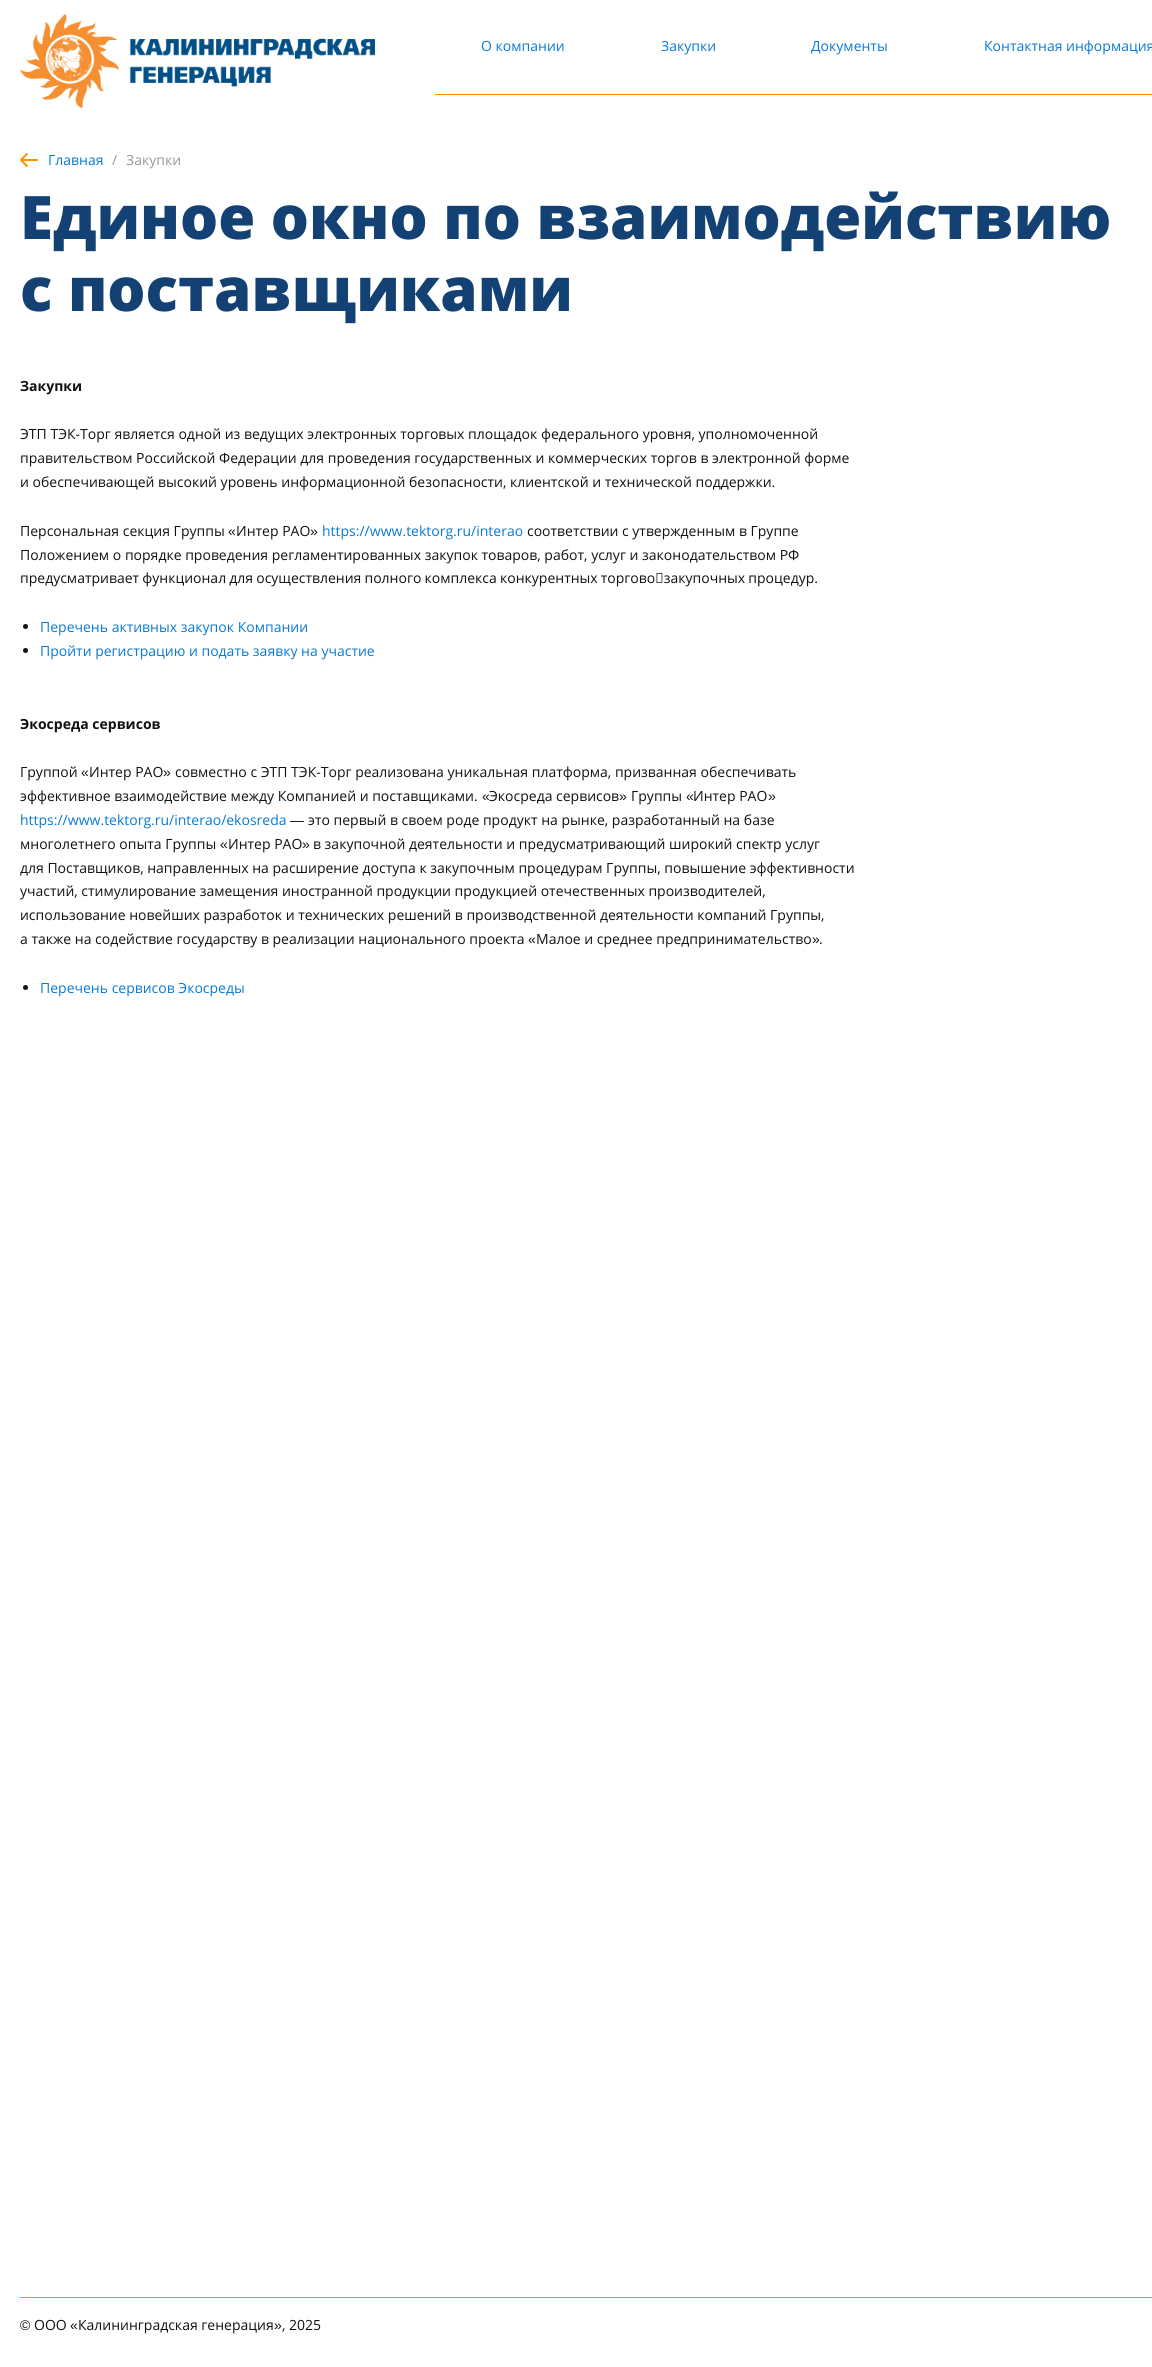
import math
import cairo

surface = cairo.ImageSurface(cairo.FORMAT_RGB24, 1152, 2367)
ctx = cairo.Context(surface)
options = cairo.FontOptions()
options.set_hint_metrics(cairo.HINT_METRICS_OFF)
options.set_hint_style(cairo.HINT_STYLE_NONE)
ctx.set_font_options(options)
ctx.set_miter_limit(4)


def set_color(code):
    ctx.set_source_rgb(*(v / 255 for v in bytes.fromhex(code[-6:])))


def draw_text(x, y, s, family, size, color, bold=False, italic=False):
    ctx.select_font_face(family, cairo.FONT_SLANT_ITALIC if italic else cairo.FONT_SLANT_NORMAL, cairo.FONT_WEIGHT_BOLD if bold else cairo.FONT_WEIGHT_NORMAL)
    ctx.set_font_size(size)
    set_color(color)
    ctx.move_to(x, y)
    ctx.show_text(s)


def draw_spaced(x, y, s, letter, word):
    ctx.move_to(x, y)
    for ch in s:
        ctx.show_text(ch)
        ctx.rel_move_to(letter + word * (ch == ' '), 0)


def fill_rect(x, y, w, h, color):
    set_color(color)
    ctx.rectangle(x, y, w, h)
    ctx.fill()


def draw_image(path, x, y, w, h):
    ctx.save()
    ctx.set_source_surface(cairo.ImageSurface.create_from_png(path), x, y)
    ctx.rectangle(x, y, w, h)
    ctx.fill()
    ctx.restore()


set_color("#ffffff")
ctx.paint()
draw_image("assets/img1.png", 20, 14, 355, 94)
fill_rect(435, 94, 717, 1, "#ff9300")
draw_text(481, 51, "О компании", "Open Sans", 14, "#097ad6")
draw_text(661, 51, "Закупки", "Open Sans", 14, "#097ad6")
draw_text(811, 51, "Документы", "Open Sans", 14, "#097ad6")
draw_text(984, 51, "Контактная информация", "Open Sans", 14, "#097ad6")
draw_image("assets/img2.png", 20, 153, 18, 14)
draw_text(48, 165, "Главная", "Open Sans", 14, "#097ad6")
draw_text(112, 165, "/", "Open Sans", 14, "#999999")
draw_text(126, 165, "Закупки", "Open Sans", 14, "#999999")
draw_text(20, 239, "Единое окно по взаимодействию", "Open Sans ExtraBold", 60, "#134174")
draw_text(20, 311, "с поставщиками", "Open Sans ExtraBold", 60, "#134174")
draw_text(20, 391, "Закупки", "Open Sans", 14, "#111111", bold=True)
draw_text(20, 439, "ЭТП ТЭК-Торг является одной из ведущих электронных торговых площадок федерального уровня, уполномоченной", "Open Sans", 14, "#111111")
draw_text(20, 463, "правительством Российской Федерации для проведения государственных и коммерческих торгов в электронной форме", "Open Sans", 14, "#111111")
draw_text(20, 487, "и обеспечивающей высокий уровень информационной безопасности, клиентской и технической поддержки.", "Open Sans", 14, "#111111")
draw_text(20, 536, "Персональная секция Группы", "Open Sans", 14, "#111111")
draw_text(228, 536, "«", "Liberation Sans", 14, "#111111")
draw_text(236, 536, "Интер РАО", "Open Sans", 14, "#111111")
draw_text(310, 536, "»", "Liberation Sans", 14, "#111111")
draw_text(322, 536, "https://www.tektorg.ru/interao", "Open Sans", 14, "#097ad6")
draw_text(527, 536, "соответствии с утвержденным в Группе", "Open Sans", 14, "#111111")
draw_text(20, 560, "Положением о порядке проведения регламентированных закупок товаров, работ, услуг и законодательством РФ", "Open Sans", 14, "#111111")
draw_spaced(20, 583, "предусматривает функционал для осуществления полного комплекса конкурентных торгово‑закупочных процедур.", 0, -0.5)
ctx.new_path()
ctx.arc(25.5, 626.5, 2.5, 0, 2 * math.pi)
ctx.fill()
draw_text(40, 632, "Перечень активных закупок Компании", "Open Sans", 14, "#097ad6")
set_color("#111111")
ctx.new_path()
ctx.arc(25.5, 650.5, 2.5, 0, 2 * math.pi)
ctx.fill()
draw_text(40, 656, "Пройти регистрацию и подать заявку на участие", "Open Sans", 14, "#097ad6")
draw_text(20, 729, "Экосреда сервисов", "Open Sans", 14, "#111111", bold=True)
draw_text(20, 777, "Группой", "Open Sans", 14, "#111111")
draw_text(81, 777, "«", "Liberation Sans", 14, "#111111")
draw_text(89, 777, "Интер РАО", "Open Sans", 14, "#111111")
draw_text(163, 777, "»", "Liberation Sans", 14, "#111111")
draw_text(175, 777, "совместно с ЭТП ТЭК-Торг реализована уникальная платформа, призванная обеспечивать", "Open Sans", 14, "#111111")
draw_text(20, 801, "эффективное взаимодействие между Компанией и поставщиками.", "Open Sans", 14, "#111111")
draw_text(482, 801, "«", "Liberation Sans", 14, "#111111")
draw_text(489, 801, "Экосреда сервисов", "Open Sans", 14, "#111111")
draw_text(619, 801, "»", "Liberation Sans", 14, "#111111")
draw_text(631, 801, "Группы", "Open Sans", 14, "#111111")
draw_text(686, 801, "«", "Liberation Sans", 14, "#111111")
draw_text(693, 801, "Интер РАО", "Open Sans", 14, "#111111")
draw_text(768, 801, "»", "Liberation Sans", 14, "#111111")
draw_text(20, 825, "https://www.tektorg.ru/interao/ekosreda", "Open Sans", 14, "#097ad6")
draw_text(290, 825, "—", "Liberation Sans", 14, "#111111")
draw_text(308, 825, "это первый в своем роде продукт на рынке, разработанный на базе", "Open Sans", 14, "#111111")
draw_text(20, 849, "многолетнего опыта Группы", "Open Sans", 14, "#111111")
draw_text(220, 849, "«", "Liberation Sans", 14, "#111111")
draw_text(228, 849, "Интер РАО", "Open Sans", 14, "#111111")
draw_text(302, 849, "»", "Liberation Sans", 14, "#111111")
draw_text(313, 849, "в закупочной деятельности и предусматривающий широкий спектр услуг", "Open Sans", 14, "#111111")
draw_text(20, 873, "для Поставщиков, направленных на расширение доступа к закупочным процедурам Группы, повышение эффективности", "Open Sans", 14, "#111111")
draw_text(20, 896, "участий, стимулирование замещения иностранной продукции продукцией отечественных производителей,", "Open Sans", 14, "#111111")
draw_text(20, 920, "использование новейших разработок и технических решений в производственной деятельности компаний Группы,", "Open Sans", 14, "#111111")
draw_text(20, 944, "а также на содействие государству в реализации национального проекта", "Open Sans", 14, "#111111")
draw_text(528, 944, "«", "Liberation Sans", 14, "#111111")
draw_text(536, 944, "Малое и среднее предпринимательство", "Open Sans", 14, "#111111")
draw_text(812, 944, "»", "Liberation Sans", 14, "#111111")
draw_text(819, 944, ".", "Open Sans", 14, "#111111")
ctx.new_path()
ctx.arc(25.5, 987.5, 2.5, 0, 2 * math.pi)
ctx.fill()
draw_text(40, 993, "Перечень сервисов Экосреды", "Open Sans", 14, "#097ad6")
fill_rect(20, 2297, 1132, 1, "#ff9300")
draw_text(20, 2330, "©", "Liberation Sans", 14, "#111111")
draw_text(34, 2330, "ООО", "Open Sans", 14, "#111111")
draw_text(70, 2330, "«", "Liberation Sans", 14, "#111111")
draw_text(78, 2330, "Калининградская генерация", "Open Sans", 14, "#111111")
draw_text(274, 2330, "»", "Liberation Sans", 14, "#111111")
draw_text(282, 2330, ", 2025", "Open Sans", 14, "#111111")
surface.write_to_png("output.png")
